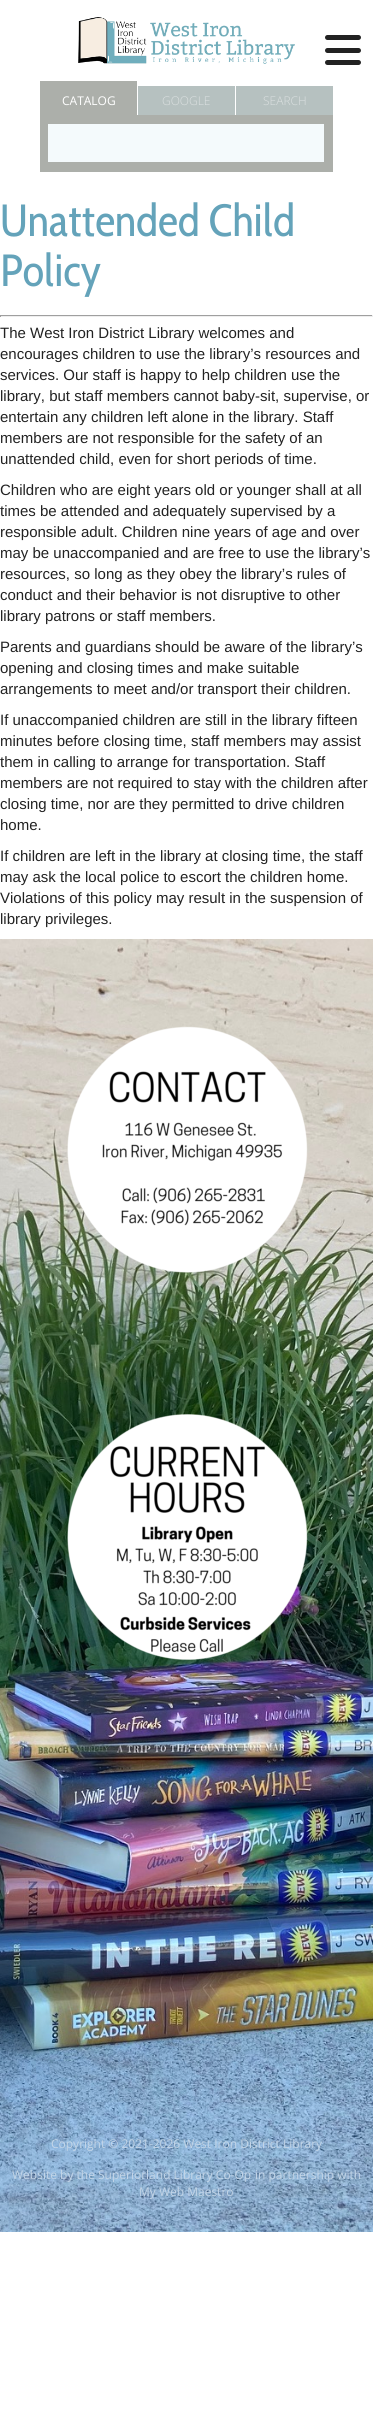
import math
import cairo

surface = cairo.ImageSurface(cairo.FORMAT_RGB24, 373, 2410)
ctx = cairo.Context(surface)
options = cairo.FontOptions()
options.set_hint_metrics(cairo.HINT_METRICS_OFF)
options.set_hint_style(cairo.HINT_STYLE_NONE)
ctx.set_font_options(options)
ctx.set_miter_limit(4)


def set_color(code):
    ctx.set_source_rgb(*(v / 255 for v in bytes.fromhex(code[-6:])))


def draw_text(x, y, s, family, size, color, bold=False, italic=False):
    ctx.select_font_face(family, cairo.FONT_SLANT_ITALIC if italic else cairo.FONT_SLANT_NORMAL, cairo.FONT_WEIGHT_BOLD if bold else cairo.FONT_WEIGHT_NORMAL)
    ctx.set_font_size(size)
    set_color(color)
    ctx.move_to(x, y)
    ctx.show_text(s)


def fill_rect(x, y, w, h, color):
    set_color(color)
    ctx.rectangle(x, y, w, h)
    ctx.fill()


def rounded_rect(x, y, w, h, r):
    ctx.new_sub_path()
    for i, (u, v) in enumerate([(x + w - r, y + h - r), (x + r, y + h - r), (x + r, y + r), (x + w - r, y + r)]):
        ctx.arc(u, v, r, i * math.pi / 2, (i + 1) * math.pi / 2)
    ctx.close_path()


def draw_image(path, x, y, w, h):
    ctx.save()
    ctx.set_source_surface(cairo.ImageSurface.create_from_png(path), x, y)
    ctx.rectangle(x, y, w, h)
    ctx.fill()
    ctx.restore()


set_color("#ffffff")
ctx.paint()
set_color("#222222")
rounded_rect(325, 35, 36, 5, 2.5)
ctx.fill()
rounded_rect(325, 48, 36, 5, 2.5)
ctx.fill()
rounded_rect(325, 60, 36, 5, 2.5)
ctx.fill()
draw_image("assets/img1.png", 78, 17, 217, 47)
fill_rect(40, 81, 97, 34, "#acafaa")
draw_text(62, 105, "CATALOG", "Open Sans", 12, "#ffffff")
fill_rect(138, 86, 97, 29, "#b6c1c0")
draw_text(162, 105, "GOOGLE", "Open Sans Light", 12, "#dbe0e0")
fill_rect(236, 86, 97, 29, "#b6c1c0")
draw_text(263, 105, "SEARCH", "Open Sans Light", 12, "#dbe0e0")
fill_rect(40, 115, 293, 57, "#acafaa")
fill_rect(48, 124, 276, 38, "#f4fafc")
draw_text(0, 236, "Unattended Child", "Cabin Condensed", 45, "#64a3ba")
draw_text(0, 286, "Policy", "Cabin Condensed", 45, "#64a3ba")
fill_rect(0, 315, 373, 1, "#9f9f9f")
fill_rect(372, 315, 1, 2, "#eeeeee")
fill_rect(0, 316, 373, 1, "#eeeeee")
fill_rect(0, 315, 1, 2, "#9f9f9f")
draw_text(0, 338, "The West Iron District Library welcomes and", "Liberation Sans", 15, "#222222")
draw_text(0, 359, "encourages children to use the library’s resources and", "Liberation Sans", 15, "#222222")
draw_text(0, 380, "services. Our staff is happy to help children use the", "Liberation Sans", 15, "#222222")
draw_text(0, 401, "library, but staff members cannot baby-sit, supervise, or", "Liberation Sans", 15, "#222222")
draw_text(0, 422, "entertain any children left alone in the library. Staff", "Liberation Sans", 15, "#222222")
draw_text(0, 443, "members are not responsible for the safety of an", "Liberation Sans", 15, "#222222")
draw_text(0, 464, "unattended child, even for short periods of time.", "Liberation Sans", 15, "#222222")
draw_text(0, 495, "Children who are eight years old or younger shall at all", "Liberation Sans", 15, "#222222")
draw_text(0, 516, "times be attended and adequately supervised by a", "Liberation Sans", 15, "#222222")
draw_text(0, 537, "responsible adult. Children nine years of age and over", "Liberation Sans", 15, "#222222")
draw_text(0, 558, "may be unaccompanied and are free to use the library’s", "Liberation Sans", 15, "#222222")
draw_text(0, 579, "resources, so long as they obey the library’s rules of", "Liberation Sans", 15, "#222222")
draw_text(0, 600, "conduct and their behavior is not disruptive to other", "Liberation Sans", 15, "#222222")
draw_text(0, 621, "library patrons or staff members.", "Liberation Sans", 15, "#222222")
draw_text(0, 652, "Parents and guardians should be aware of the library’s", "Liberation Sans", 15, "#222222")
draw_text(0, 673, "opening and closing times and make suitable", "Liberation Sans", 15, "#222222")
draw_text(0, 694, "arrangements to meet and/or transport their children.", "Liberation Sans", 15, "#222222")
draw_text(0, 725, "If unaccompanied children are still in the library fifteen", "Liberation Sans", 15, "#222222")
draw_text(0, 746, "minutes before closing time, staff members may assist", "Liberation Sans", 15, "#222222")
draw_text(0, 767, "them in calling to arrange for transportation. Staff", "Liberation Sans", 15, "#222222")
draw_text(0, 788, "members are not required to stay with the children after", "Liberation Sans", 15, "#222222")
draw_text(0, 809, "closing time, nor are they permitted to drive children", "Liberation Sans", 15, "#222222")
draw_text(0, 830, "home.", "Liberation Sans", 15, "#222222")
draw_text(0, 861, "If children are left in the library at closing time, the staff", "Liberation Sans", 15, "#222222")
draw_text(0, 882, "may ask the local police to escort the children home.", "Liberation Sans", 15, "#222222")
draw_text(0, 903, "Violations of this policy may result in the suspension of", "Liberation Sans", 15, "#222222")
draw_text(0, 924, "library privileges.", "Liberation Sans", 15, "#222222")
draw_image("assets/img2.png", 0, 939, 373, 1293)
draw_image("assets/img3.png", 67, 1026, 241, 247)
draw_image("assets/img4.png", 67, 1414, 241, 246)
draw_text(51, 2148, "Copyright © 2021-2026 West Iron District Library", "Open Sans", 12, "#c3d5e7")
draw_text(12, 2179, "Website by the", "Open Sans", 12, "#c3d5e7")
draw_text(98, 2179, "Superiorland Library Co-Op", "Open Sans", 12, "#c3d5e7")
draw_text(255, 2179, "in partnership with", "Open Sans", 12, "#c3d5e7")
draw_text(139, 2196, "My Web Maestro", "Open Sans", 12, "#c3d5e7")
surface.write_to_png("output.png")
